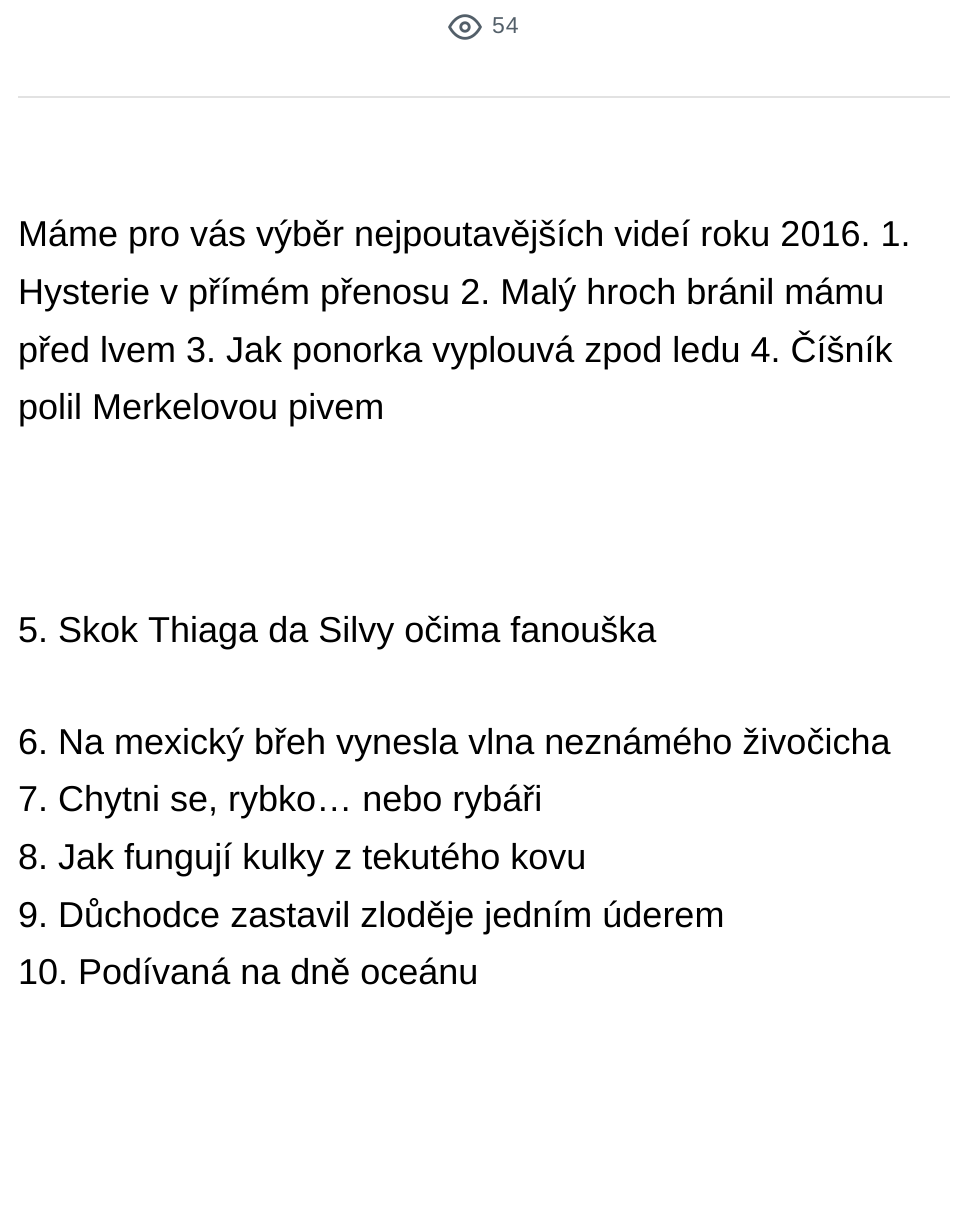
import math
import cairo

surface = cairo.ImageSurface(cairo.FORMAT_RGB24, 968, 1207)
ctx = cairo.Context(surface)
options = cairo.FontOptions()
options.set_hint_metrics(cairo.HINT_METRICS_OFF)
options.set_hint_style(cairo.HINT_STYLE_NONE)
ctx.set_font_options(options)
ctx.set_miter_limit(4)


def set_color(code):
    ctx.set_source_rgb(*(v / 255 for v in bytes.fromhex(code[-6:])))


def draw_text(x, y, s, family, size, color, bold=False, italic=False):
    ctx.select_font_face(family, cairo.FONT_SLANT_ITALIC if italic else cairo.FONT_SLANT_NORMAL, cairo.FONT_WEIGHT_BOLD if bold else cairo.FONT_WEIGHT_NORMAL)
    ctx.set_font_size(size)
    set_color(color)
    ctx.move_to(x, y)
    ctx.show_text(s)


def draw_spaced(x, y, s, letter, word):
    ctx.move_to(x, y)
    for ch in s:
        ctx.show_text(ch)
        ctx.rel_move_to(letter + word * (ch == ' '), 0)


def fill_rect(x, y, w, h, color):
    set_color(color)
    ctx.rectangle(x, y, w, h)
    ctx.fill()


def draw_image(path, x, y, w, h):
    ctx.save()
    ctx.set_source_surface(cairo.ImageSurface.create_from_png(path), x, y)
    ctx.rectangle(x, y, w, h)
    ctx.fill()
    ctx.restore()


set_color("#ffffff")
ctx.paint()
draw_image("assets/img1.png", 448, 14, 34, 26)
ctx.select_font_face("Liberation Sans")
ctx.set_font_size(23)
set_color("#535f69")
draw_spaced(492, 33, "54", 1, 0)
fill_rect(18, 96, 932, 2, "#e2e2e2")
draw_text(18, 246, "Máme pro vás výběr nejpoutavějších videí roku 2016. 1.", "Liberation Sans", 36, "#000000")
draw_text(18, 304, "Hysterie v přímém přenosu 2. Malý hroch bránil mámu", "Liberation Sans", 36, "#000000")
draw_text(18, 362, "před lvem 3. Jak ponorka vyplouvá zpod ledu 4. Číšník", "Liberation Sans", 36, "#000000")
draw_text(18, 419, "polil Merkelovou pivem", "Liberation Sans", 36, "#000000")
draw_text(18, 642, "5. Skok Thiaga da Silvy očima fanouška", "Liberation Sans", 36, "#000000")
draw_text(18, 754, "6. Na mexický břeh vynesla vlna neznámého živočicha", "Liberation Sans", 36, "#000000")
draw_text(18, 811, "7. Chytni se, rybko… nebo rybáři", "Liberation Sans", 36, "#000000")
draw_text(18, 869, "8. Jak fungují kulky z tekutého kovu", "Liberation Sans", 36, "#000000")
draw_text(18, 927, "9. Důchodce zastavil zloděje jedním úderem", "Liberation Sans", 36, "#000000")
draw_text(18, 984, "10. Podívaná na dně oceánu", "Liberation Sans", 36, "#000000")
surface.write_to_png("output.png")
